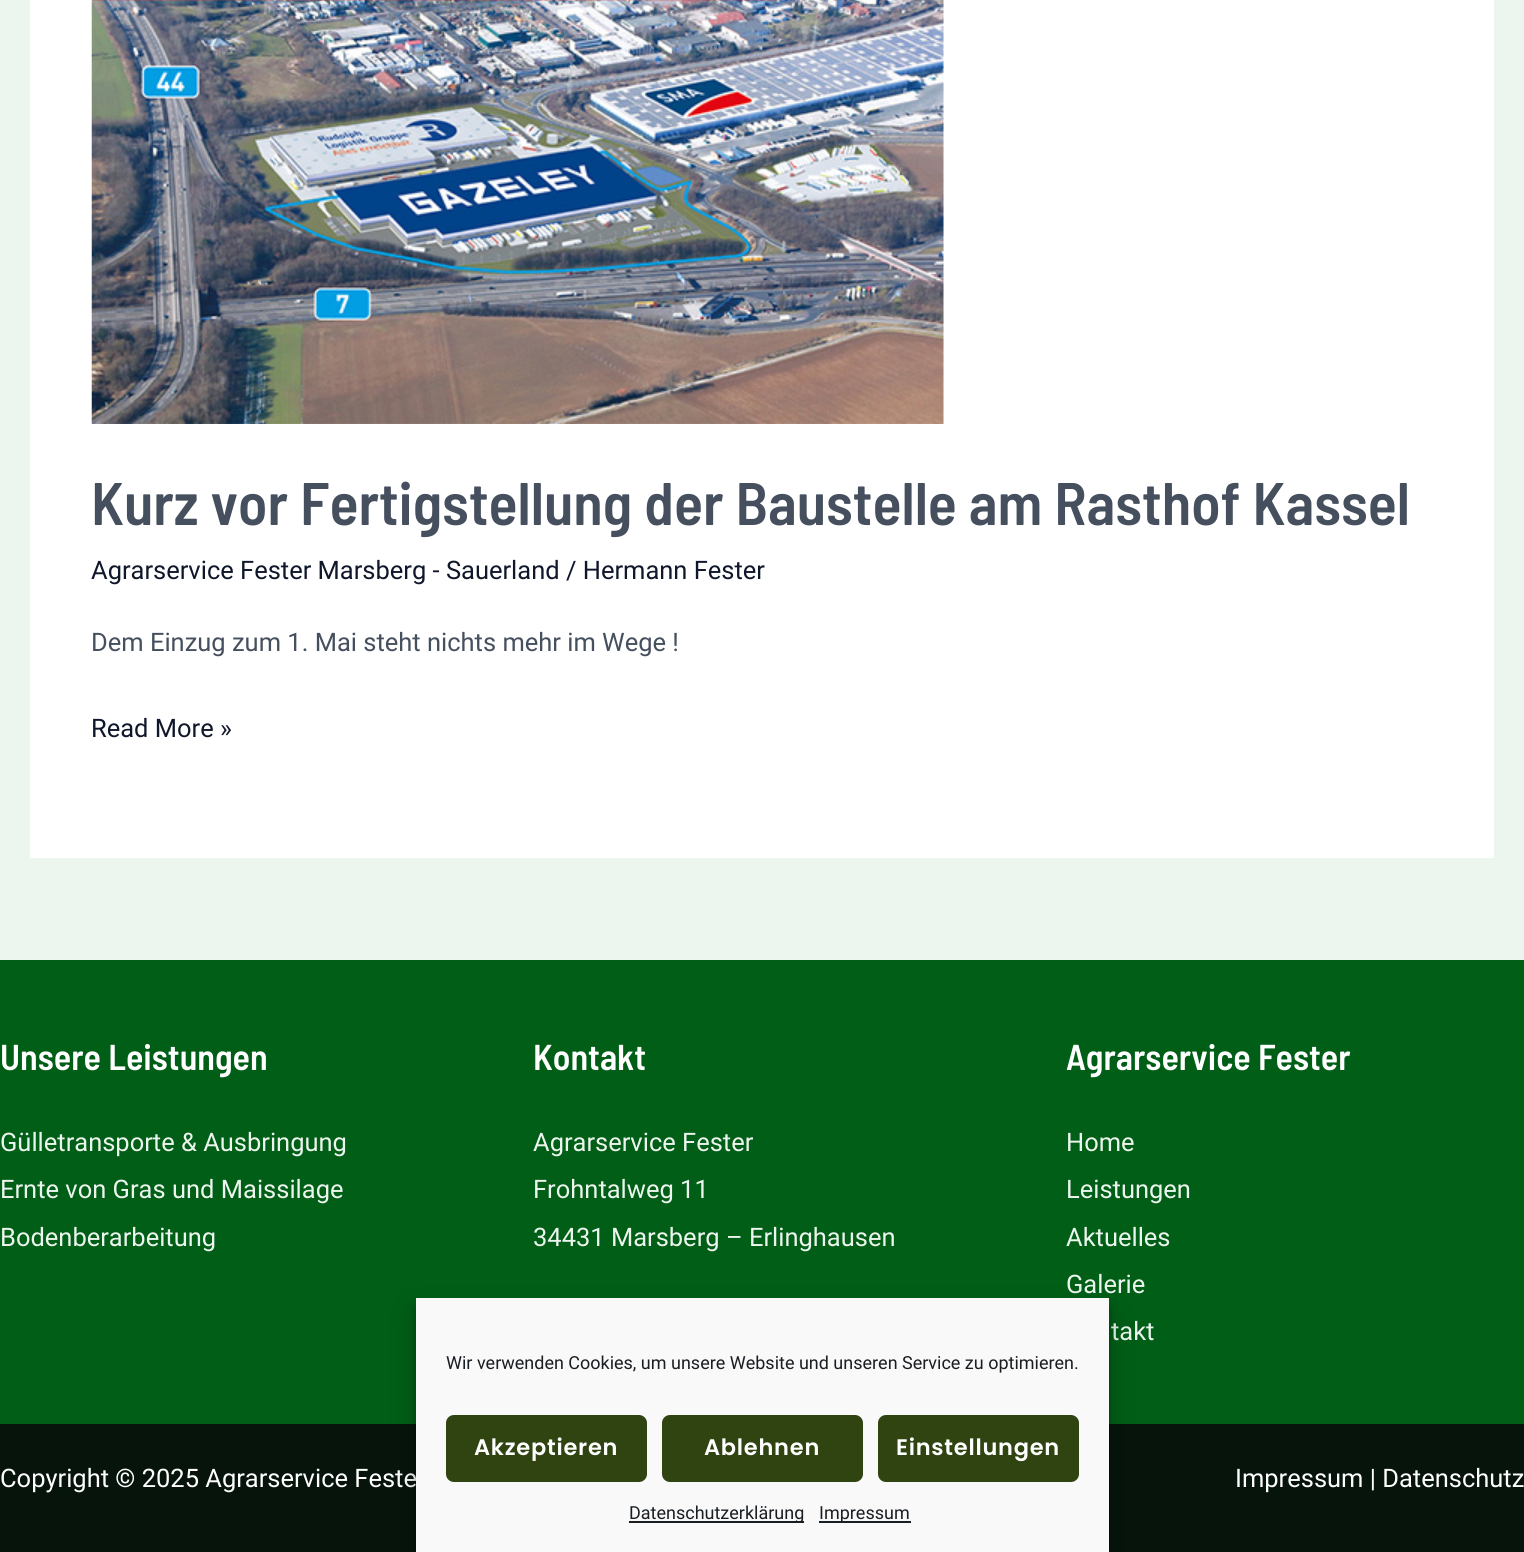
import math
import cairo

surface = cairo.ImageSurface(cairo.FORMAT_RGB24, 1524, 1552)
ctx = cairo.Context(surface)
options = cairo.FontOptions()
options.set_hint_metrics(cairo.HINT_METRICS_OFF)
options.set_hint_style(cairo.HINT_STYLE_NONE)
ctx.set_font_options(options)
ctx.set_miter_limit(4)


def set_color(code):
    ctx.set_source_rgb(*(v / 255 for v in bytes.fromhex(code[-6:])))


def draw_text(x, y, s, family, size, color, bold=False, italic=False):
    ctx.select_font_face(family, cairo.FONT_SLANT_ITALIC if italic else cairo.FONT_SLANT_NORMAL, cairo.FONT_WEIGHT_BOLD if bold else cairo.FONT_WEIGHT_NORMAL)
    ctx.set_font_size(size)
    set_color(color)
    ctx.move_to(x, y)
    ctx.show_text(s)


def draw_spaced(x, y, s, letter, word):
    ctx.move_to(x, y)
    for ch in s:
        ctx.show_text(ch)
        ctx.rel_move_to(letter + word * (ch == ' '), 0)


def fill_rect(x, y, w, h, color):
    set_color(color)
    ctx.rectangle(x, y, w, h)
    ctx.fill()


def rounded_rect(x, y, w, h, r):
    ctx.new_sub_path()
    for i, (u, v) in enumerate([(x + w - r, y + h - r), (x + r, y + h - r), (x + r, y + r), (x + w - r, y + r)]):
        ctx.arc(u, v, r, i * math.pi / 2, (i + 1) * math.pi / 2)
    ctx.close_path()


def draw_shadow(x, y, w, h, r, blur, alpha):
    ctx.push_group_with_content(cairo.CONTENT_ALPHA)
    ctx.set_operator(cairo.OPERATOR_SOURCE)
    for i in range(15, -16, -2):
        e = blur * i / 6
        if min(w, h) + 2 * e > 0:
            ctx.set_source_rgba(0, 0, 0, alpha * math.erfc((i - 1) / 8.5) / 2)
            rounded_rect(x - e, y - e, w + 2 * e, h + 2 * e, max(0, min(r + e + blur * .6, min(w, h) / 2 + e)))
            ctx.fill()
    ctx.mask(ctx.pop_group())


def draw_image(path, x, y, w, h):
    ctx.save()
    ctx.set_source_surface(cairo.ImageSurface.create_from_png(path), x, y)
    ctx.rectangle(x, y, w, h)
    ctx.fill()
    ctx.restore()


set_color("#edf6ee")
ctx.paint()
fill_rect(30, 0, 1464, 858, "#ffffff")
draw_image("assets/img1.png", 91, 0, 853, 424)
draw_text(91, 525, "Kurz vor Fertigstellung der Baustelle am Rasthof Kassel", "Barlow Semi Condensed SemiBold", 60, "#454f5e")
draw_text(91, 579, "Agrarservice Fester Marsberg - Sauerland / Hermann Fester", "Roboto", 25.5, "#0f172a")
draw_text(91, 651, "Dem Einzug zum 1. Mai steht nichts mehr im Wege !", "Roboto", 25.5, "#454f5e")
draw_text(91, 737, "Read More »", "Roboto", 25.5, "#0f172a")
fill_rect(0, 960, 1524, 464, "#005e16")
draw_text(0, 1070, "Unsere Leistungen", "Barlow Semi Condensed SemiBold", 36, "#ffffff")
draw_text(0, 1151, "Gülletransporte & Ausbringung", "Roboto", 25.5, "#edf6ee")
draw_text(0, 1198, "Ernte von Gras und Maissilage", "Roboto", 25.5, "#edf6ee")
draw_text(0, 1246, "Bodenberarbeitung", "Roboto", 25.5, "#edf6ee")
draw_text(533, 1070, "Kontakt", "Barlow Semi Condensed SemiBold", 36, "#ffffff")
draw_text(533, 1151, "Agrarservice Fester", "Roboto", 25.5, "#edf6ee")
draw_text(533, 1198, "Frohntalweg 11", "Roboto", 25.5, "#edf6ee")
draw_text(533, 1246, "34431 Marsberg – Erlinghausen", "Roboto", 25.5, "#edf6ee")
draw_text(1066, 1070, "Agrarservice Fester", "Barlow Semi Condensed SemiBold", 36, "#ffffff")
draw_text(1066, 1151, "Home", "Roboto", 25.5, "#edf6ee")
draw_text(1066, 1198, "Leistungen", "Roboto", 25.5, "#edf6ee")
draw_text(1066, 1246, "Aktuelles", "Roboto", 25.5, "#edf6ee")
draw_text(1066, 1293, "Galerie", "Roboto", 25.5, "#edf6ee")
draw_text(1111, 1340, "takt", "Roboto", 25.5, "#edf6ee")
fill_rect(0, 1424, 1524, 128, "#06140c")
draw_text(0, 1487, "Copyright © 2025 Agrarservice Feste", "Roboto", 25.5, "#ffffff")
draw_text(1235, 1487, "Impressum | Datenschutz", "Roboto", 25.5, "#ffffff")
set_color("#000000")
draw_shadow(416, 1307, 693, 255, 0, 4.5, 0.23)
draw_shadow(416, 1313, 693, 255, 0, 15, 0.19)
fill_rect(416, 1298, 693, 254, "#f9f9f9")
draw_text(446, 1369, "Wir verwenden Cookies, um unsere Website und unseren Service zu optimieren.", "Roboto", 18, "#191e23")
set_color("#304412")
rounded_rect(447, 1416, 199, 65, 7)
ctx.fill_preserve()
ctx.stroke()
ctx.select_font_face("Poppins SemiBold")
ctx.set_font_size(22.5)
set_color("#ffffff")
draw_spaced(474, 1455, "Akzeptieren", 0.75, 0)
set_color("#304412")
rounded_rect(663, 1416, 199, 65, 7)
ctx.fill_preserve()
ctx.stroke()
set_color("#ffffff")
draw_spaced(704, 1455, "Ablehnen", 0.75, 0)
set_color("#304412")
rounded_rect(879, 1416, 199, 65, 7)
ctx.fill_preserve()
ctx.stroke()
set_color("#ffffff")
draw_spaced(896, 1455, "Einstellungen", 0.75, 0)
fill_rect(629, 1521, 175, 2, "#191e23")
draw_text(629, 1519, "Datenschutzerklärung", "Roboto", 18, "#191e23")
fill_rect(819, 1521, 92, 2, "#191e23")
draw_text(819, 1519, "Impressum", "Roboto", 18, "#191e23")
surface.write_to_png("output.png")
